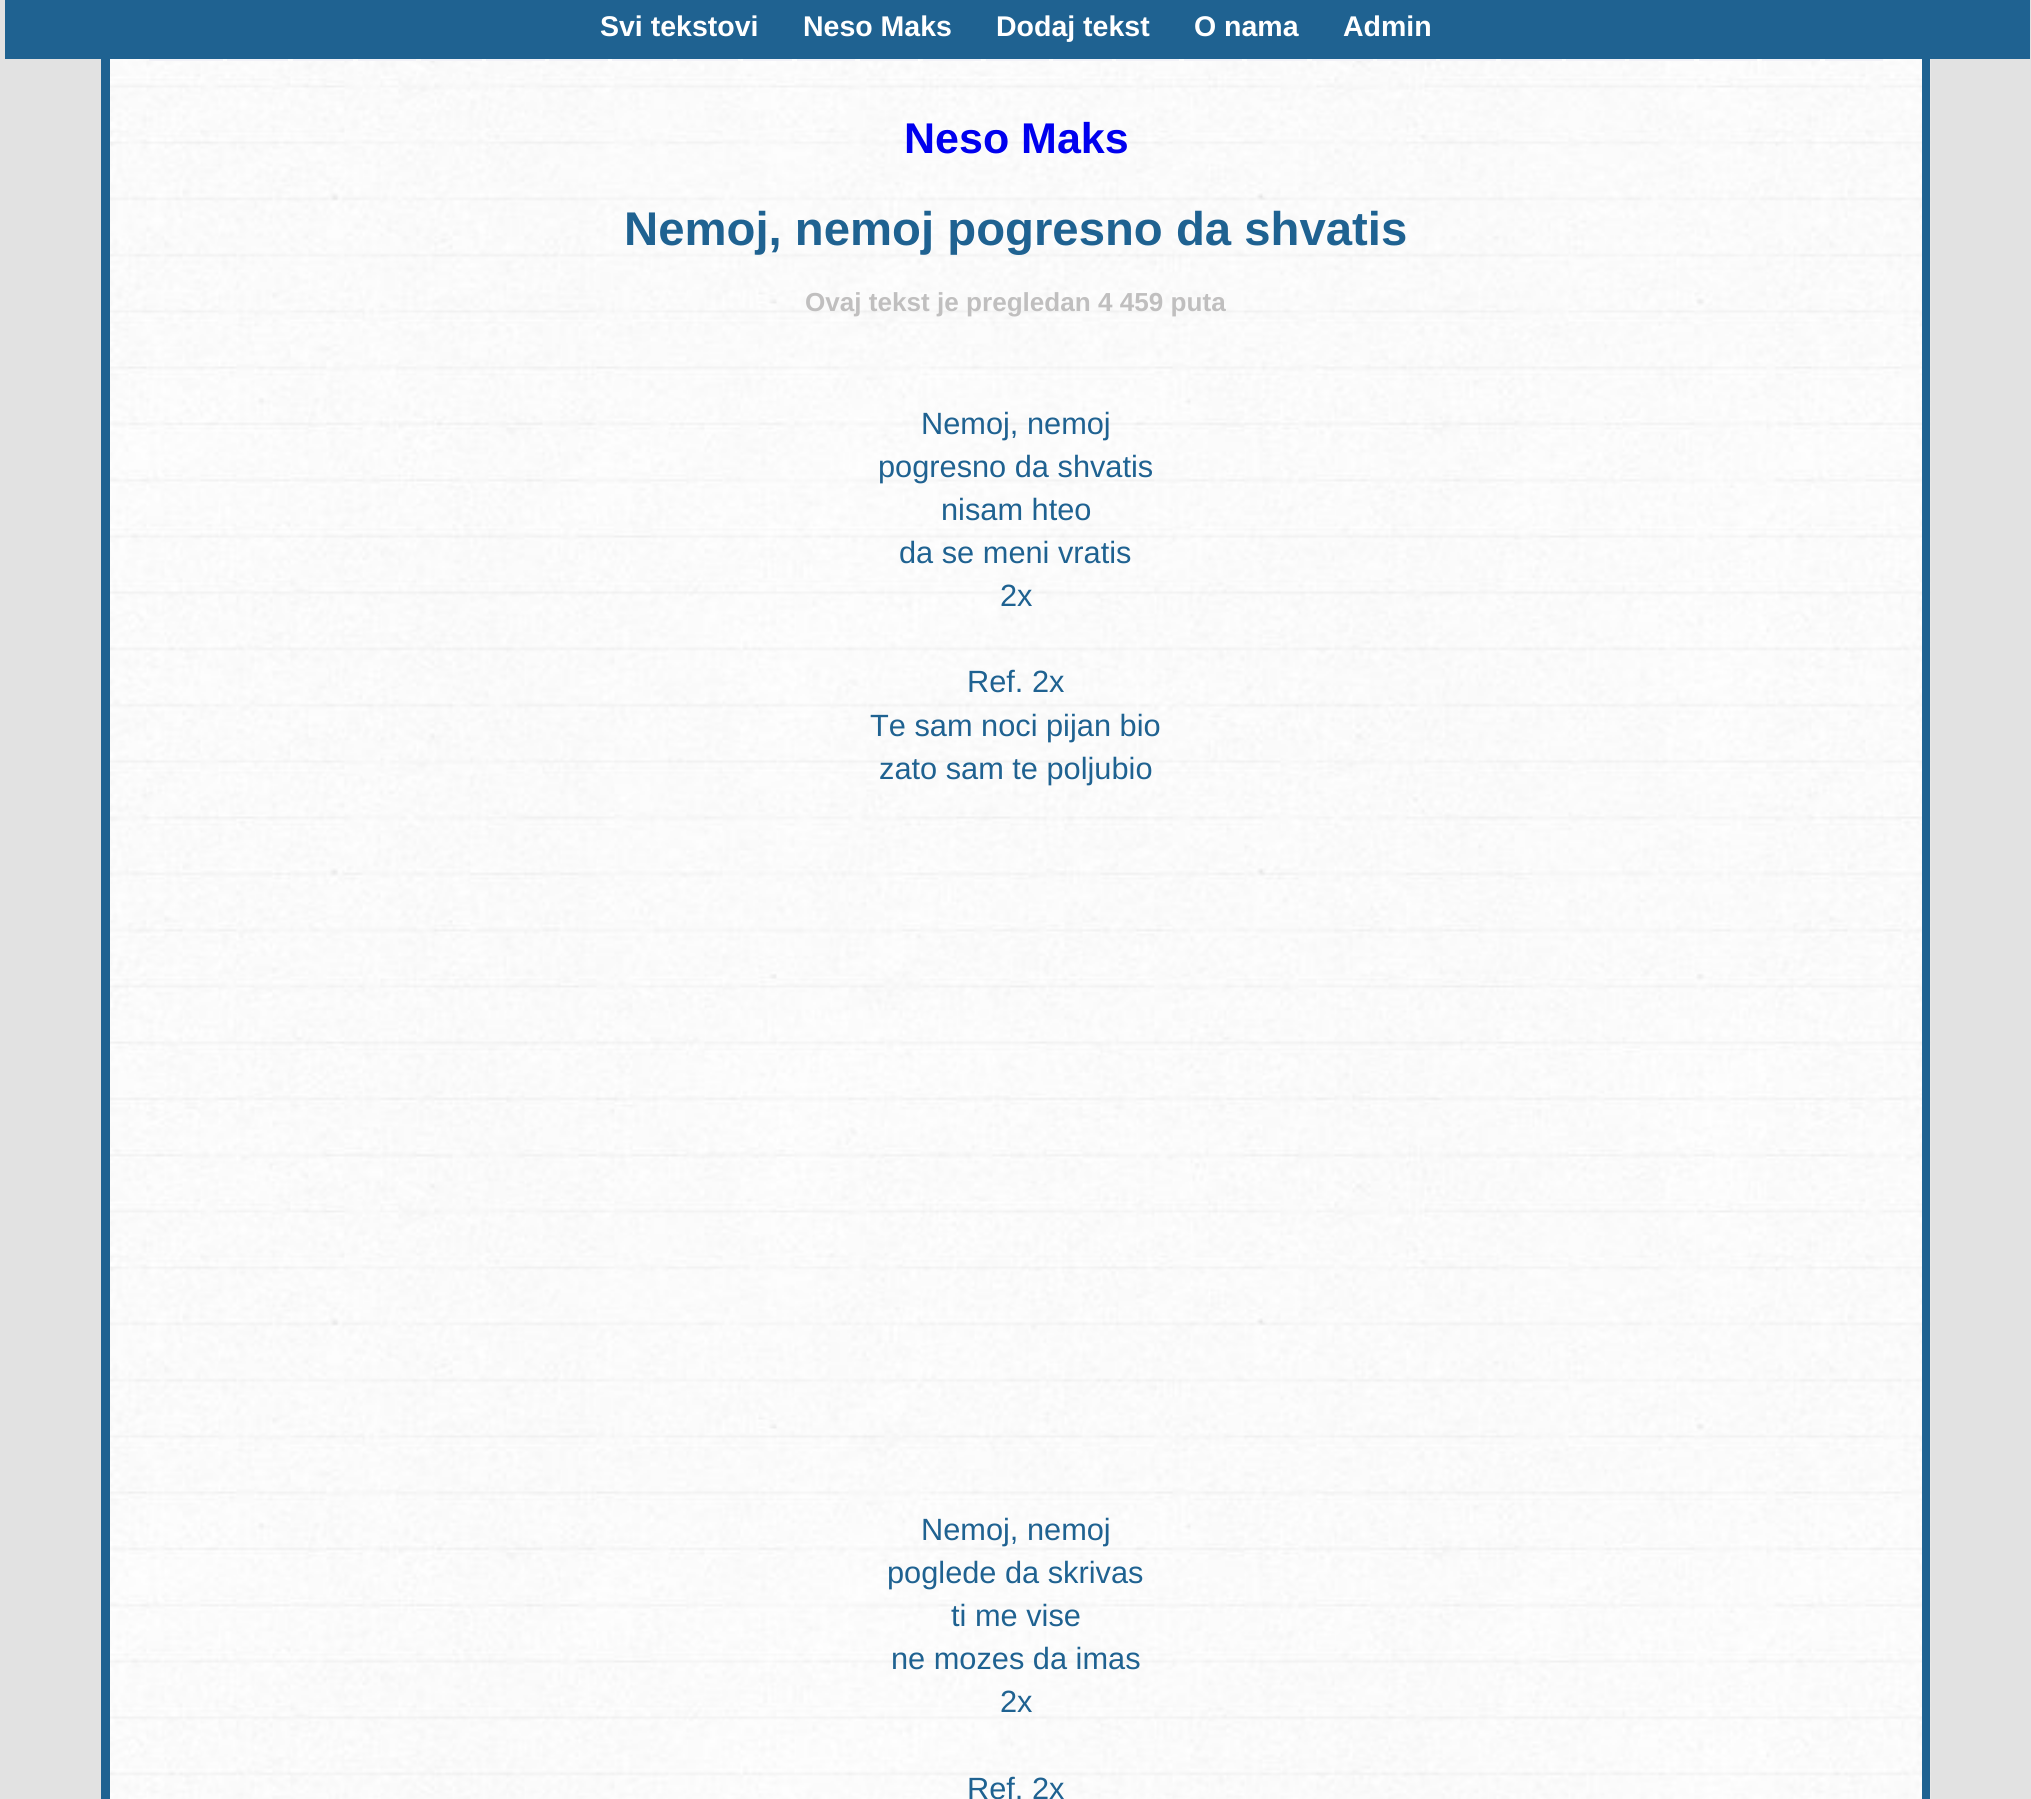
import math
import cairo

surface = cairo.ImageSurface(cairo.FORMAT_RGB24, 2031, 1799)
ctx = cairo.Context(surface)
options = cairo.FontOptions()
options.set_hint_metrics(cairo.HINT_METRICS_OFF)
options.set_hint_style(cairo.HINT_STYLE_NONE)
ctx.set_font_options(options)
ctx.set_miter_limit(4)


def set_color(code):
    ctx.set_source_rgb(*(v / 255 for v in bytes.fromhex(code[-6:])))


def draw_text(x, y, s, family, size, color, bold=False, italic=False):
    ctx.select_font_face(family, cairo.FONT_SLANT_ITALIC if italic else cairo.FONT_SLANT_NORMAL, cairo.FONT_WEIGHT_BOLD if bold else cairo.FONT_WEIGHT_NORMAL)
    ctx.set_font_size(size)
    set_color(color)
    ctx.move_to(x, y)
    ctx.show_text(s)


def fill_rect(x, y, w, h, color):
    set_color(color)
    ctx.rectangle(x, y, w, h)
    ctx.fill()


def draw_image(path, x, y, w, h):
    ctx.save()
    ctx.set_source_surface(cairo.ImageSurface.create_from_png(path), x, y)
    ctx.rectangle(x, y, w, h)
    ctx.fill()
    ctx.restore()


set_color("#e2e2e2")
ctx.paint()
draw_image("assets/img1.png", 110, 59, 1821, 1740)
set_color("#1f6291")
ctx.set_fill_rule(cairo.FILL_RULE_EVEN_ODD)
ctx.new_path()
ctx.move_to(146, -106)
ctx.line_to(1886, -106)
ctx.curve_to(1910, -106, 1930, -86, 1930, -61)
ctx.line_to(1930, 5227)
ctx.curve_to(1930, 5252, 1910, 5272, 1886, 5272)
ctx.line_to(146, 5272)
ctx.curve_to(121, 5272, 101, 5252, 101, 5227)
ctx.line_to(101, -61)
ctx.curve_to(101, -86, 121, -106, 146, -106)
ctx.close_path()
ctx.move_to(146, -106)
ctx.line_to(1886, -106)
ctx.curve_to(1905, -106, 1922, -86, 1922, -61)
ctx.line_to(1922, 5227)
ctx.curve_to(1922, 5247, 1905, 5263, 1886, 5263)
ctx.line_to(146, 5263)
ctx.curve_to(126, 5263, 110, 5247, 110, 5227)
ctx.line_to(110, -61)
ctx.curve_to(110, -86, 126, -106, 146, -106)
ctx.close_path()
ctx.fill()
fill_rect(5, 0, 2025, 59, "#1f6291")
draw_text(600, 36, "Svi tekstovi", "Liberation Sans", 28.5, "#ffffff", bold=True)
draw_text(803, 36, "Neso Maks", "Liberation Sans", 28.5, "#ffffff", bold=True)
draw_text(996, 36, "Dodaj tekst", "Liberation Sans", 28.5, "#ffffff", bold=True)
draw_text(1194, 36, "O nama", "Liberation Sans", 28.5, "#ffffff", bold=True)
draw_text(1343, 36, "Admin", "Liberation Sans", 28.5, "#ffffff", bold=True)
fill_rect(149, 59, 74, 2, "#f2f2f8")
fill_rect(227, 59, 61, 2, "#f2f2f8")
fill_rect(293, 59, 60, 2, "#f2f2f8")
fill_rect(358, 59, 58, 2, "#f2f2f8")
fill_rect(421, 59, 61, 2, "#f2f2f8")
fill_rect(486, 59, 59, 2, "#f2f2f8")
fill_rect(549, 59, 59, 2, "#f2f2f8")
fill_rect(612, 59, 61, 2, "#f2f2f8")
fill_rect(677, 59, 61, 2, "#f2f2f8")
fill_rect(743, 59, 49, 2, "#f2f2f8")
fill_rect(797, 59, 58, 2, "#f2f2f8")
fill_rect(860, 59, 58, 2, "#f2f2f8")
fill_rect(923, 59, 58, 2, "#f2f2f8")
fill_rect(986, 59, 63, 2, "#f2f2f8")
fill_rect(1053, 59, 59, 2, "#f2f2f8")
fill_rect(1116, 59, 63, 2, "#f2f2f8")
fill_rect(1184, 59, 58, 2, "#f2f2f8")
fill_rect(1247, 59, 60, 2, "#f2f2f8")
fill_rect(1312, 59, 61, 2, "#f2f2f8")
fill_rect(1377, 59, 59, 2, "#f2f2f8")
fill_rect(1440, 59, 56, 2, "#f2f2f8")
fill_rect(1501, 59, 61, 2, "#f2f2f8")
fill_rect(1566, 59, 59, 2, "#f2f2f8")
fill_rect(1629, 59, 65, 2, "#f2f2f8")
fill_rect(1699, 59, 58, 2, "#f2f2f8")
fill_rect(1762, 59, 58, 2, "#f2f2f8")
fill_rect(1825, 59, 58, 2, "#f2f2f8")
draw_text(904, 153, "Neso Maks", "Liberation Sans", 43, "#0000ee", bold=True)
draw_text(624, 245, "Nemoj, nemoj pogresno da shvatis", "Liberation Sans", 47.3, "#1f6291", bold=True)
draw_text(805, 311, "Ovaj tekst je pregledan 4 459 puta", "Liberation Sans", 26.1, "#c0bfbf", bold=True)
draw_text(921, 434, "Nemoj, nemoj", "Liberation Sans", 30.75, "#1f6291")
draw_text(878, 477, "pogresno da shvatis", "Liberation Sans", 30.75, "#1f6291")
draw_text(941, 520, "nisam hteo", "Liberation Sans", 30.75, "#1f6291")
draw_text(899, 563, "da se meni vratis", "Liberation Sans", 30.75, "#1f6291")
draw_text(1000, 606, "2x", "Liberation Sans", 30.75, "#1f6291")
draw_text(967, 692, "Ref. 2x", "Liberation Sans", 30.75, "#1f6291")
draw_text(870, 736, "Te sam noci pijan bio", "Liberation Sans", 30.75, "#1f6291")
draw_text(879, 779, "zato sam te poljubio", "Liberation Sans", 30.75, "#1f6291")
draw_text(921, 1540, "Nemoj, nemoj", "Liberation Sans", 30.75, "#1f6291")
draw_text(887, 1583, "poglede da skrivas", "Liberation Sans", 30.75, "#1f6291")
draw_text(951, 1626, "ti me vise", "Liberation Sans", 30.75, "#1f6291")
draw_text(891, 1669, "ne mozes da imas", "Liberation Sans", 30.75, "#1f6291")
draw_text(1000, 1712, "2x", "Liberation Sans", 30.75, "#1f6291")
draw_text(967, 1799, "Ref. 2x", "Liberation Sans", 30.75, "#1f6291")
surface.write_to_png("output.png")
